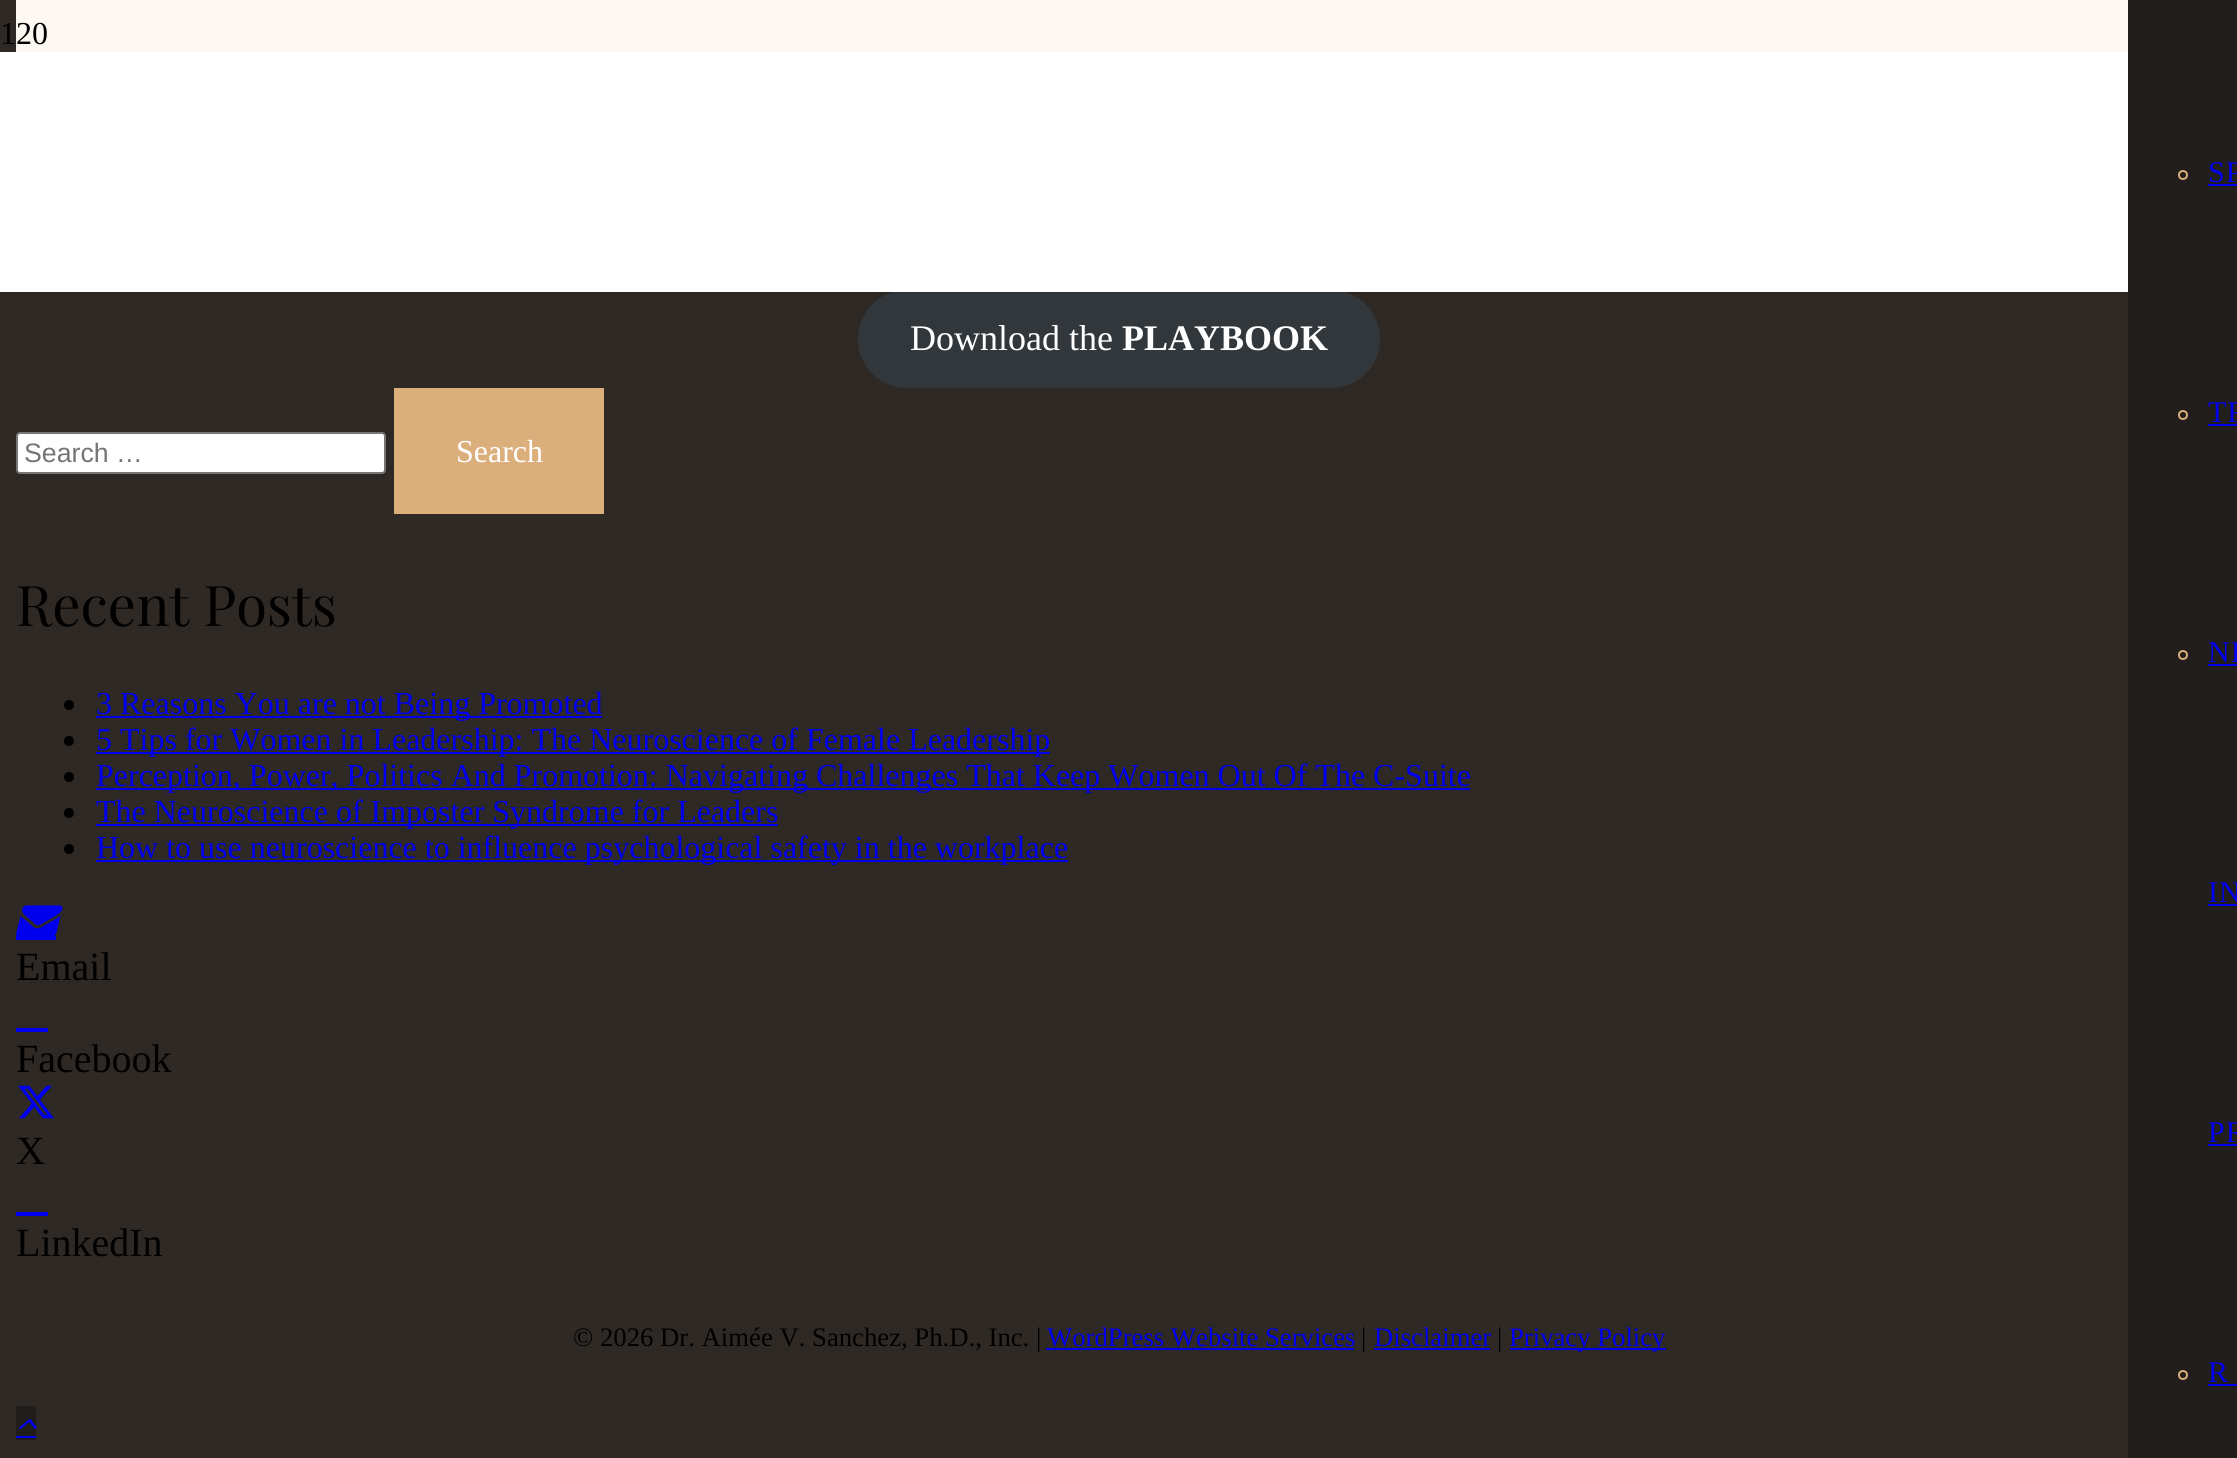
import math
import cairo

surface = cairo.ImageSurface(cairo.FORMAT_RGB24, 2237, 1458)
ctx = cairo.Context(surface)
options = cairo.FontOptions()
options.set_hint_metrics(cairo.HINT_METRICS_OFF)
options.set_hint_style(cairo.HINT_STYLE_NONE)
ctx.set_font_options(options)
ctx.set_miter_limit(4)


def set_color(code):
    ctx.set_source_rgb(*(v / 255 for v in bytes.fromhex(code[-6:])))


def draw_text(x, y, s, family, size, color, bold=False, italic=False):
    ctx.select_font_face(family, cairo.FONT_SLANT_ITALIC if italic else cairo.FONT_SLANT_NORMAL, cairo.FONT_WEIGHT_BOLD if bold else cairo.FONT_WEIGHT_NORMAL)
    ctx.set_font_size(size)
    set_color(color)
    ctx.move_to(x, y)
    ctx.show_text(s)


def draw_spaced(x, y, s, letter, word):
    ctx.move_to(x, y)
    for ch in s:
        ctx.show_text(ch)
        ctx.rel_move_to(letter + word * (ch == ' '), 0)


def fill_rect(x, y, w, h, color):
    set_color(color)
    ctx.rectangle(x, y, w, h)
    ctx.fill()


def rounded_rect(x, y, w, h, r):
    ctx.new_sub_path()
    for i, (u, v) in enumerate([(x + w - r, y + h - r), (x + r, y + h - r), (x + r, y + r), (x + w - r, y + r)]):
        ctx.arc(u, v, r, i * math.pi / 2, (i + 1) * math.pi / 2)
    ctx.close_path()


def draw_image(path, x, y, w, h):
    ctx.save()
    ctx.set_source_surface(cairo.ImageSurface.create_from_png(path), x, y)
    ctx.rectangle(x, y, w, h)
    ctx.fill()
    ctx.restore()


set_color("#2e2925")
ctx.paint()
fill_rect(16, 0, 2112, 52, "#fdf8f1")
draw_text(0, 44, "120", "Liberation Serif", 32, "#000000")
set_color("#32373c")
rounded_rect(858, 290, 522, 98, 49)
ctx.fill()
ctx.set_source_rgba(0, 0, 0, 0.08)
ctx.rectangle(0, 292, 2128, 2)
ctx.fill()
fill_rect(0, 52, 2128, 240, "#ffffff")
fill_rect(2128, 0, 109, 1458, "#211e1b")
ctx.arc(2183, 175, 4, 0, 2 * math.pi)
set_color("#daaf7c")
ctx.stroke()
ctx.set_font_size(30)
set_color("#0000ee")
draw_spaced(2208, 182, "SP", 1, 0)
fill_rect(2208, 184, 29, 2, "#0000ee")
ctx.new_path()
ctx.arc(2183, 415, 4, 0, 2 * math.pi)
set_color("#daaf7c")
ctx.stroke()
set_color("#0000ee")
draw_spaced(2208, 422, "TR", 1, 0)
fill_rect(2208, 424, 29, 2, "#0000ee")
ctx.new_path()
ctx.arc(2183, 655, 4, 0, 2 * math.pi)
set_color("#daaf7c")
ctx.stroke()
set_color("#0000ee")
draw_spaced(2208, 662, "NE", 1, 0)
fill_rect(2208, 664, 29, 2, "#0000ee")
draw_spaced(2208, 902, "IN", 1, 0)
fill_rect(2208, 904, 29, 2, "#0000ee")
draw_spaced(2208, 1142, "PR", 1, 0)
fill_rect(2208, 1144, 29, 2, "#0000ee")
ctx.new_path()
ctx.arc(2183, 1375, 4, 0, 2 * math.pi)
set_color("#daaf7c")
ctx.stroke()
set_color("#0000ee")
draw_spaced(2208, 1382, "R", 1, 0)
fill_rect(2208, 1384, 29, 2, "#0000ee")
draw_text(910, 350, "Download the", "Liberation Serif", 36, "#ffffff")
draw_text(1122, 350, "PLAYBOOK", "Liberation Serif", 36, "#ffffff", bold=True)
rounded_rect(17, 433, 368, 40, 3)
ctx.fill_preserve()
set_color("#767676")
ctx.stroke()
draw_text(24, 462, "Search …", "Liberation Sans", 26.7, "#757575")
fill_rect(394, 388, 210, 126, "#daaf7c")
draw_text(456, 462, "Search", "Liberation Serif", 32, "#ffffff")
draw_text(16, 626, "Recent Posts", "Playfair Display", 56, "#000000")
ctx.new_path()
ctx.arc(69, 705, 5, 0, 2 * math.pi)
ctx.fill()
fill_rect(96, 716, 506, 2, "#0000ee")
draw_text(96, 714, "3 Reasons You are not Being Promoted", "Liberation Serif", 32, "#0000ee")
set_color("#000000")
ctx.new_path()
ctx.arc(69, 741, 5, 0, 2 * math.pi)
ctx.fill()
fill_rect(96, 752, 954, 2, "#0000ee")
draw_text(96, 750, "5 Tips for Women in Leadership: The Neuroscience of Female Leadership", "Liberation Serif", 32, "#0000ee")
set_color("#000000")
ctx.new_path()
ctx.arc(69, 777, 5, 0, 2 * math.pi)
ctx.fill()
fill_rect(96, 788, 1374, 2, "#0000ee")
draw_text(96, 786, "Perception, Power, Politics And Promotion: Navigating Challenges That Keep Women Out Of The C-Suite", "Liberation Serif", 32, "#0000ee")
set_color("#000000")
ctx.new_path()
ctx.arc(69, 813, 5, 0, 2 * math.pi)
ctx.fill()
fill_rect(96, 824, 682, 2, "#0000ee")
draw_text(96, 822, "The Neuroscience of Imposter Syndrome for Leaders", "Liberation Serif", 32, "#0000ee")
set_color("#000000")
ctx.new_path()
ctx.arc(69, 849, 5, 0, 2 * math.pi)
ctx.fill()
fill_rect(96, 860, 972, 2, "#0000ee")
draw_text(96, 858, "How to use neuroscience to influence psychological safety in the workplace", "Liberation Serif", 32, "#0000ee")
draw_image("assets/img1.png", 16, 905, 47, 31)
fill_rect(16, 936, 40, 4, "#0000ee")
draw_text(16, 980, "Email", "Liberation Serif", 40, "#000000")
fill_rect(16, 1028, 32, 4, "#0000ee")
draw_text(16, 1072, "Facebook", "Liberation Serif", 40, "#000000")
draw_image("assets/img2.png", 18, 1085, 36, 34)
draw_text(16, 1164, "X", "Liberation Serif", 40, "#000000")
fill_rect(16, 1212, 32, 4, "#0000ee")
draw_text(16, 1256, "LinkedIn", "Liberation Serif", 40, "#000000")
draw_text(573, 1346, "© 2026 Dr. Aimée V. Sanchez, Ph.D., Inc. |", "Liberation Serif", 26.7, "#000000")
draw_text(1047, 1346, "WordPress Website Services", "Liberation Serif", 26.7, "#0000ee")
fill_rect(1046, 1348, 308, 2, "#0000ee")
draw_text(1361, 1346, "|", "Liberation Serif", 26.7, "#000000")
draw_text(1374, 1346, "Disclaimer", "Liberation Serif", 26.7, "#0000ee")
fill_rect(1374, 1348, 116, 2, "#0000ee")
draw_text(1497, 1346, "|", "Liberation Serif", 26.7, "#000000")
fill_rect(1510, 1348, 156, 2, "#0000ee")
draw_text(1509, 1346, "Privacy Policy", "Liberation Serif", 26.7, "#0000ee")
fill_rect(16, 1406, 20, 34, "#201d1a")
draw_image("assets/img3.png", 19, 1418, 18, 12)
fill_rect(16, 1436, 20, 2, "#0000ee")
surface.write_to_png("output.png")
